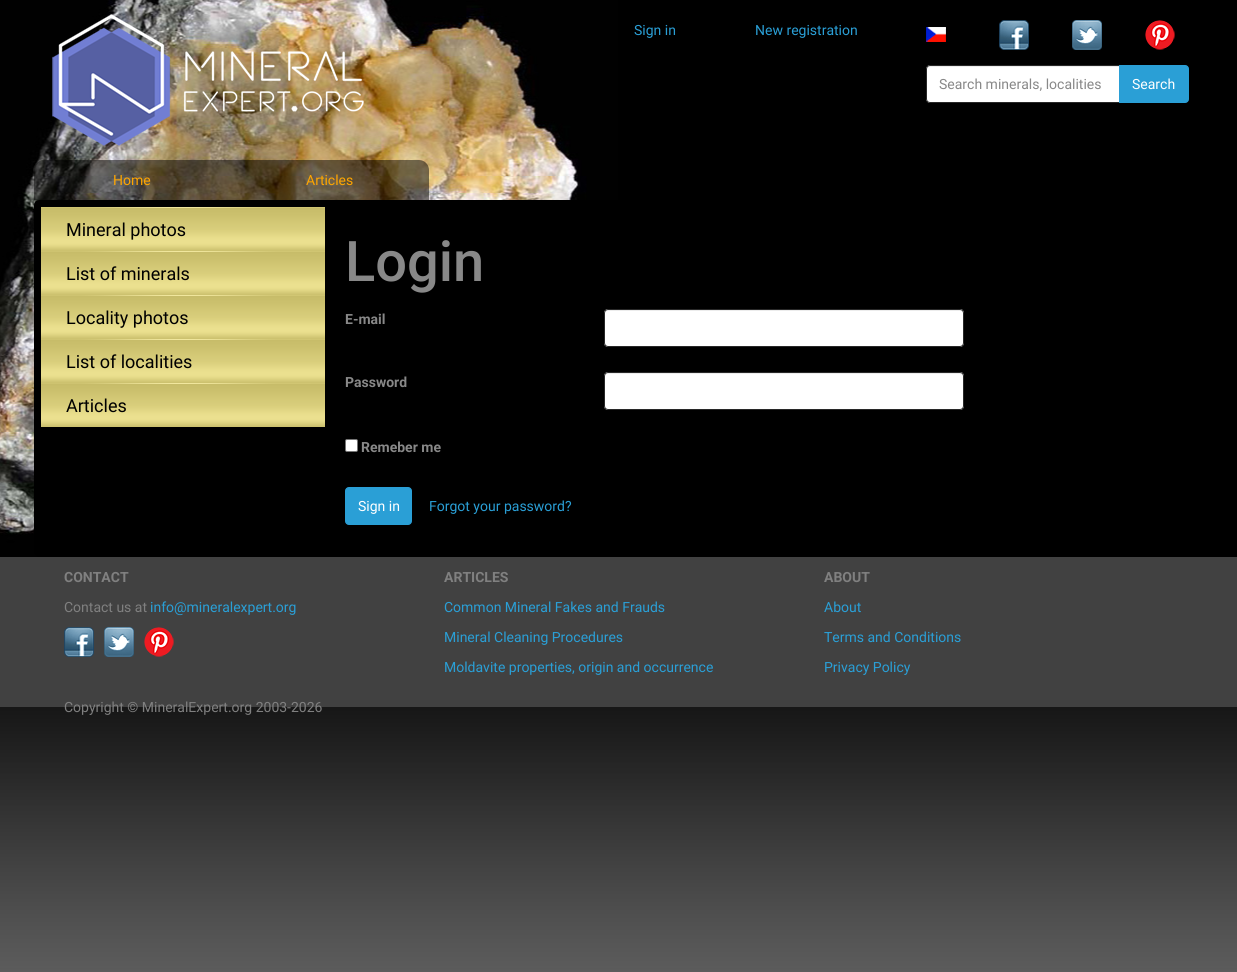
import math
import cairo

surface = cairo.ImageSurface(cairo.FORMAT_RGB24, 1237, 972)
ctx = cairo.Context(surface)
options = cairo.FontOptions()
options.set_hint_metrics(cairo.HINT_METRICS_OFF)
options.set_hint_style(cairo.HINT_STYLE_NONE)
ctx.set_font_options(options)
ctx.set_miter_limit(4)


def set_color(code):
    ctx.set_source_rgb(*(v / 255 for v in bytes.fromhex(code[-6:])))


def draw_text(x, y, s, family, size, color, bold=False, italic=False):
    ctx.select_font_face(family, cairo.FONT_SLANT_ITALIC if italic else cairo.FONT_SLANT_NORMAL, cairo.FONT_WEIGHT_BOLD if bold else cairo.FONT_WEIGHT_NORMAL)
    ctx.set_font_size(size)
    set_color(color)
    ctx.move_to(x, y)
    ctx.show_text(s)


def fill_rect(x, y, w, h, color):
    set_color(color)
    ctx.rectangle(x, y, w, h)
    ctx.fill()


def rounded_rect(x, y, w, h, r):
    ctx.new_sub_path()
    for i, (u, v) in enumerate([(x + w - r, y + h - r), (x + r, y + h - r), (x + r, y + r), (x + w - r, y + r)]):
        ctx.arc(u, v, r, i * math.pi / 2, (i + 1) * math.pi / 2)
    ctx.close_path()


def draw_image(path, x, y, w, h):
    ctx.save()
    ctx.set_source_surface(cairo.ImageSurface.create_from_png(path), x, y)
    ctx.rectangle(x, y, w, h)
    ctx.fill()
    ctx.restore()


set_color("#ffffff")
ctx.paint()
draw_image("assets/img1.png", 0, 0, 1237, 972)
draw_image("assets/img2.png", 52, 14, 312, 132)
draw_text(634, 35, "Sign in", "Roboto", 14, "#2a9fd6")
draw_text(755, 35, "New registration", "Roboto", 14, "#2a9fd6")
draw_image("assets/img3.png", 926, 27, 20, 15)
draw_image("assets/img4.png", 999, 20, 30, 30)
draw_image("assets/img5.png", 1072, 20, 30, 30)
draw_image("assets/img6.png", 1145, 20, 30, 30)
set_color("#ffffff")
ctx.new_path()
ctx.move_to(930, 65)
ctx.line_to(1120, 65)
ctx.line_to(1120, 103)
ctx.line_to(930, 103)
ctx.curve_to(928, 103, 926, 101, 926, 99)
ctx.line_to(926, 69)
ctx.curve_to(926, 67, 928, 65, 930, 65)
ctx.close_path()
ctx.fill()
set_color("#ececec")
ctx.new_path()
ctx.move_to(930, 67)
ctx.line_to(1119, 67)
ctx.line_to(1119, 66)
ctx.line_to(930, 66)
ctx.curve_to(928, 66, 927, 68, 927, 70)
ctx.curve_to(927, 68, 928, 67, 930, 67)
ctx.close_path()
ctx.fill()
ctx.new_path()
ctx.move_to(930, 65.5)
ctx.line_to(1119.5, 65.5)
ctx.line_to(1119.5, 102.5)
ctx.line_to(930, 102.5)
ctx.curve_to(928, 102.5, 926.5, 101, 926.5, 99)
ctx.line_to(926.5, 69)
ctx.curve_to(926.5, 67, 928, 65.5, 930, 65.5)
ctx.close_path()
set_color("#282828")
ctx.set_line_width(1)
ctx.stroke()
draw_text(939, 89, "Search minerals, localities", "Roboto", 14, "#888888")
set_color("#2a9fd6")
ctx.new_path()
ctx.move_to(1119.5, 65.5)
ctx.line_to(1185, 65.5)
ctx.curve_to(1187, 65.5, 1188.5, 67, 1188.5, 69)
ctx.line_to(1188.5, 99)
ctx.curve_to(1188.5, 101, 1187, 102.5, 1185, 102.5)
ctx.line_to(1119.5, 102.5)
ctx.close_path()
ctx.fill_preserve()
ctx.stroke()
draw_text(1132, 89, "Search", "Roboto", 14, "#ffffff")
ctx.set_source_rgba(0, 0, 0, 0.5)
ctx.new_path()
ctx.move_to(44, 160)
ctx.line_to(231, 160)
ctx.line_to(231, 200)
ctx.line_to(34, 200)
ctx.line_to(34, 170)
ctx.curve_to(34, 164.5, 38.5, 160, 44, 160)
ctx.close_path()
ctx.fill()
draw_text(113, 185, "Home", "Roboto", 14, "#ffa500")
ctx.set_source_rgba(0, 0, 0, 0.5)
ctx.new_path()
ctx.move_to(231, 160)
ctx.line_to(419, 160)
ctx.curve_to(424.5, 160, 429, 164.5, 429, 170)
ctx.line_to(429, 200)
ctx.line_to(231, 200)
ctx.close_path()
ctx.fill()
draw_text(306, 185, "Articles", "Roboto", 14, "#ffa500")
set_color("#000000")
rounded_rect(37.5, 203.5, 1163, 350, 1.5)
ctx.fill_preserve()
ctx.set_line_width(7)
ctx.stroke()
draw_image("assets/img7.png", 41, 207, 284, 44)
draw_text(66, 236, "Mineral photos", "Roboto", 18, "#000000")
draw_image("assets/img7.png", 41, 251, 284, 44)
draw_text(66, 280, "List of minerals", "Roboto", 18, "#000000")
draw_image("assets/img7.png", 41, 295, 284, 44)
draw_text(66, 324, "Locality photos", "Roboto", 18, "#000000")
draw_image("assets/img7.png", 41, 339, 284, 44)
draw_text(66, 368, "List of localities", "Roboto", 18, "#000000")
draw_image("assets/img7.png", 41, 383, 284, 44)
draw_text(66, 412, "Articles", "Roboto", 18, "#000000")
draw_text(345, 281, "Login", "Roboto Medium", 56, "#888888")
draw_text(345, 324, "E-mail", "Roboto", 14, "#888888", bold=True)
set_color("#ffffff")
rounded_rect(604, 309, 360, 38, 4)
ctx.fill()
set_color("#ececec")
ctx.new_path()
ctx.move_to(608, 311)
ctx.line_to(960, 311)
ctx.curve_to(962, 311, 963, 312, 963, 314)
ctx.curve_to(963, 312, 962, 310, 960, 310)
ctx.line_to(608, 310)
ctx.line_to(606, 311)
ctx.line_to(605, 314)
ctx.curve_to(605, 312, 606, 311, 608, 311)
ctx.close_path()
ctx.fill()
rounded_rect(604.5, 309.5, 359, 37, 3.5)
set_color("#282828")
ctx.set_line_width(1)
ctx.stroke()
draw_text(345, 387, "Password", "Roboto", 14, "#888888", bold=True)
set_color("#ffffff")
rounded_rect(604, 372, 360, 38, 4)
ctx.fill()
set_color("#ececec")
ctx.new_path()
ctx.move_to(608, 374)
ctx.line_to(960, 374)
ctx.curve_to(962, 374, 963, 375, 963, 377)
ctx.curve_to(963, 375, 962, 373, 960, 373)
ctx.line_to(608, 373)
ctx.line_to(606, 374)
ctx.line_to(605, 377)
ctx.curve_to(605, 375, 606, 374, 608, 374)
ctx.close_path()
ctx.fill()
rounded_rect(604.5, 372.5, 359, 37, 3.5)
set_color("#282828")
ctx.stroke()
set_color("#ffffff")
rounded_rect(345.5, 439.5, 12, 12, 1.5)
ctx.fill_preserve()
set_color("#767676")
ctx.stroke()
draw_text(361, 452, "Remeber me", "Roboto", 14, "#888888", bold=True)
set_color("#2a9fd6")
rounded_rect(345.5, 487.5, 66, 37, 3.5)
ctx.fill_preserve()
ctx.stroke()
draw_text(358, 511, "Sign in", "Roboto", 14, "#ffffff")
draw_text(429, 511, "Forgot your password?", "Roboto", 14, "#2a9fd6")
fill_rect(0, 557, 1237, 150, "#414141")
draw_text(64, 582, "CONTACT", "Roboto", 14, "#808080", bold=True)
draw_text(64, 612, "Contact us at", "Roboto", 14, "#808080")
draw_text(150, 612, "info@mineralexpert.org", "Roboto", 14, "#2a9fd6")
draw_image("assets/img8.png", 64, 627, 30, 30)
draw_image("assets/img9.png", 104, 627, 30, 30)
draw_image("assets/img10.png", 144, 627, 30, 30)
draw_text(444, 582, "ARTICLES", "Roboto", 14, "#808080", bold=True)
draw_text(444, 612, "Common Mineral Fakes and Frauds", "Roboto", 14, "#2a9fd6")
draw_text(444, 642, "Mineral Cleaning Procedures", "Roboto", 14, "#2a9fd6")
draw_text(444, 672, "Moldavite properties, origin and occurrence", "Roboto", 14, "#2a9fd6")
draw_text(824, 582, "ABOUT", "Roboto", 14, "#808080", bold=True)
draw_text(824, 612, "About", "Roboto", 14, "#2a9fd6")
draw_text(824, 642, "Terms and Conditions", "Roboto", 14, "#2a9fd6")
draw_text(824, 672, "Privacy Policy", "Roboto", 14, "#2a9fd6")
draw_text(64, 712, "Copyright © MineralExpert.org 2003-2026", "Roboto", 14, "#808080")
surface.write_to_png("output.png")
